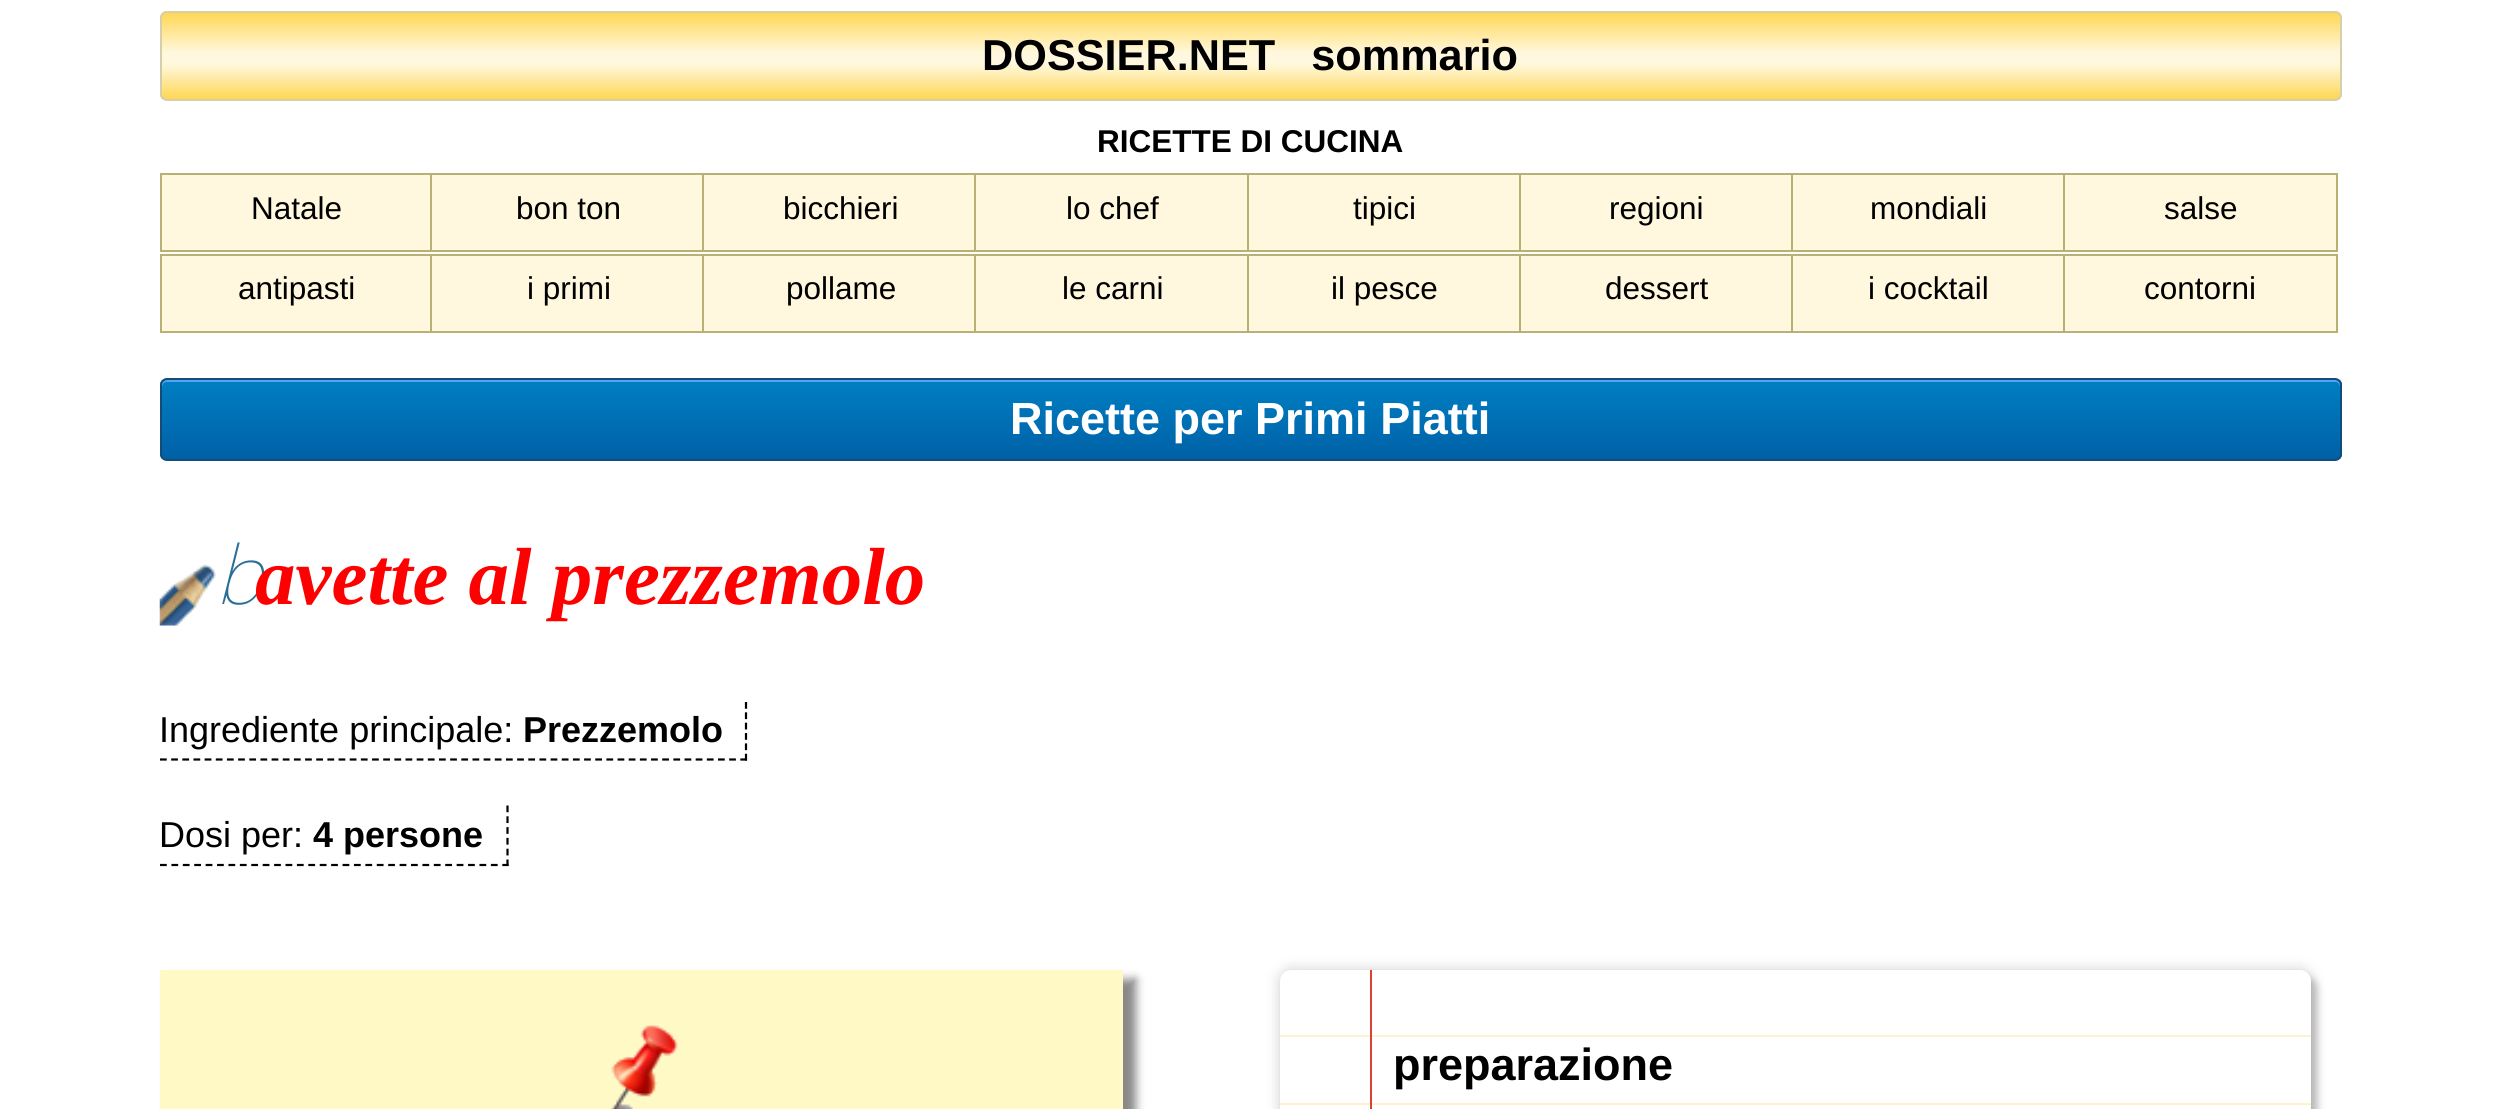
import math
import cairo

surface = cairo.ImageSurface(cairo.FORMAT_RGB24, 2498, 1109)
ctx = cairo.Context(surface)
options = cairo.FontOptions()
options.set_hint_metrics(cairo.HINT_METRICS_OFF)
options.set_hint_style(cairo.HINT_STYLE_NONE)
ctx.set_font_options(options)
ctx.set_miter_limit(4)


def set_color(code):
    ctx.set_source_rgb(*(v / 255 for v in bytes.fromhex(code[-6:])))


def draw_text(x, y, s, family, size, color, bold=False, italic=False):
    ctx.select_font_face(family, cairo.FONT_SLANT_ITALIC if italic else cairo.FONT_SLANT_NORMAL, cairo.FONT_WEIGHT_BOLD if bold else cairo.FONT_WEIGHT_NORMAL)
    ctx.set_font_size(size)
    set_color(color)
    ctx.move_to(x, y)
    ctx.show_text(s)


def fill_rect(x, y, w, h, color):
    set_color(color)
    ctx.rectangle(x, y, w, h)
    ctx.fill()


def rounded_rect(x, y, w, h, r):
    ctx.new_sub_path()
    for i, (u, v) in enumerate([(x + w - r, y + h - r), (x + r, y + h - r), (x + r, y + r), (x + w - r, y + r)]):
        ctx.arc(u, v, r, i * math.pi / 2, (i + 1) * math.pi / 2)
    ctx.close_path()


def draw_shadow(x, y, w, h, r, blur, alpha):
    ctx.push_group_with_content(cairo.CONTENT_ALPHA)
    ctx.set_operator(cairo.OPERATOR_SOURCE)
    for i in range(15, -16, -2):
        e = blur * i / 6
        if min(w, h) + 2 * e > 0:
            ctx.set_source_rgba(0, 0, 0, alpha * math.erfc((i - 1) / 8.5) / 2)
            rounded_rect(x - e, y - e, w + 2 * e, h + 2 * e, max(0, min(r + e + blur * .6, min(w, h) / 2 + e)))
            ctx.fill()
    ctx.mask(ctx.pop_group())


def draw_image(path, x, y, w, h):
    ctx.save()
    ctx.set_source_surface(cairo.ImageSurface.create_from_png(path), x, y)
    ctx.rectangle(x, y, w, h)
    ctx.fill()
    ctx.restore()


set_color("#ffffff")
ctx.paint()
ctx.save()
rounded_rect(160, 11, 2182, 90, 7)
ctx.clip()
gradient = cairo.LinearGradient(1251, -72, 1251, 14)
gradient.add_color_stop_rgba(0, 1, 0.843, 0.329, 1)
gradient.add_color_stop_rgba(0.47, 1, 0.973, 0.875, 1)
gradient.add_color_stop_rgba(0.59, 1, 0.973, 0.875, 1)
gradient.add_color_stop_rgba(1, 1, 0.843, 0.329, 1)
ctx.set_source(gradient)
ctx.rectangle(160, 11, 2182, 3)
ctx.fill()
gradient = cairo.LinearGradient(1251, 13, 1251, 99)
gradient.add_color_stop_rgba(0, 1, 0.843, 0.329, 1)
gradient.add_color_stop_rgba(0.47, 1, 0.973, 0.875, 1)
gradient.add_color_stop_rgba(0.59, 1, 0.973, 0.875, 1)
gradient.add_color_stop_rgba(1, 1, 0.843, 0.329, 1)
ctx.set_source(gradient)
ctx.rectangle(160, 14, 2182, 85)
ctx.fill()
ctx.restore()
rounded_rect(161, 12, 2180, 88, 6)
set_color("#d6cfab")
ctx.stroke()
draw_text(982, 70, "DOSSIER.NET   sommario", "Liberation Sans", 43.25, "#000000", bold=True)
draw_text(1097, 152, "RICETTE DI CUCINA", "Liberation Sans", 31.5, "#000000", bold=True)
fill_rect(162, 175, 268, 75, "#fff8df")
ctx.rectangle(161, 174, 272, 77)
set_color("#bbb073")
ctx.stroke()
draw_text(251, 219, "Natale", "Liberation Sans", 31.5, "#000000")
fill_rect(432, 175, 270, 75, "#fff8df")
ctx.rectangle(431, 174, 275, 77)
set_color("#bbb073")
ctx.stroke()
draw_text(516, 219, "bon ton", "Liberation Sans", 31.5, "#000000")
fill_rect(704, 175, 270, 75, "#fff8df")
ctx.rectangle(703, 174, 275, 77)
set_color("#bbb073")
ctx.stroke()
draw_text(783, 219, "bicchieri", "Liberation Sans", 31.5, "#000000")
fill_rect(976, 175, 271, 75, "#fff8df")
ctx.rectangle(975, 174, 275, 77)
set_color("#bbb073")
ctx.stroke()
draw_text(1066, 219, "lo chef", "Liberation Sans", 31.5, "#000000")
fill_rect(1249, 175, 270, 75, "#fff8df")
ctx.rectangle(1248, 174, 274, 77)
set_color("#bbb073")
ctx.stroke()
draw_text(1353, 219, "tipici", "Liberation Sans", 31.5, "#000000")
fill_rect(1521, 175, 270, 75, "#fff8df")
ctx.rectangle(1520, 174, 275, 77)
set_color("#bbb073")
ctx.stroke()
draw_text(1609, 219, "regioni", "Liberation Sans", 31.5, "#000000")
fill_rect(1793, 175, 270, 75, "#fff8df")
ctx.rectangle(1792, 174, 275, 77)
set_color("#bbb073")
ctx.stroke()
draw_text(1870, 219, "mondiali", "Liberation Sans", 31.5, "#000000")
set_color("#fff8df")
ctx.rectangle(2064, 174, 273, 77)
ctx.fill_preserve()
set_color("#bbb073")
ctx.stroke()
draw_text(2164, 219, "salse", "Liberation Sans", 31.5, "#000000")
fill_rect(162, 256, 268, 75, "#fff8df")
ctx.rectangle(161, 255, 272, 77)
set_color("#bbb073")
ctx.stroke()
draw_text(238, 299, "antipasti", "Liberation Sans", 31.5, "#000000")
fill_rect(432, 256, 270, 75, "#fff8df")
ctx.rectangle(431, 255, 275, 77)
set_color("#bbb073")
ctx.stroke()
draw_text(527, 299, "i primi", "Liberation Sans", 31.5, "#000000")
fill_rect(704, 256, 270, 75, "#fff8df")
ctx.rectangle(703, 255, 275, 77)
set_color("#bbb073")
ctx.stroke()
draw_text(786, 299, "pollame", "Liberation Sans", 31.5, "#000000")
fill_rect(976, 256, 271, 75, "#fff8df")
ctx.rectangle(975, 255, 275, 77)
set_color("#bbb073")
ctx.stroke()
draw_text(1062, 299, "le carni", "Liberation Sans", 31.5, "#000000")
fill_rect(1249, 256, 270, 75, "#fff8df")
ctx.rectangle(1248, 255, 274, 77)
set_color("#bbb073")
ctx.stroke()
draw_text(1331, 299, "il pesce", "Liberation Sans", 31.5, "#000000")
fill_rect(1521, 256, 270, 75, "#fff8df")
ctx.rectangle(1520, 255, 275, 77)
set_color("#bbb073")
ctx.stroke()
draw_text(1605, 299, "dessert", "Liberation Sans", 31.5, "#000000")
fill_rect(1793, 256, 270, 75, "#fff8df")
ctx.rectangle(1792, 255, 275, 77)
set_color("#bbb073")
ctx.stroke()
draw_text(1868, 299, "i cocktail", "Liberation Sans", 31.5, "#000000")
set_color("#fff8df")
ctx.rectangle(2064, 255, 273, 77)
ctx.fill_preserve()
set_color("#bbb073")
ctx.stroke()
draw_text(2144, 299, "contorni", "Liberation Sans", 31.5, "#000000")
ctx.save()
rounded_rect(160, 378, 2182, 83, 7)
ctx.clip()
gradient = cairo.LinearGradient(1251, 380, 1251, 459)
gradient.add_color_stop_rgba(0.05, 0, 0.49, 0.757, 1)
gradient.add_color_stop_rgba(1, 0, 0.38, 0.655, 1)
ctx.set_source(gradient)
ctx.rectangle(160, 380, 2182, 79)
ctx.fill()
ctx.restore()
set_color("#54a3f7")
ctx.new_path()
ctx.move_to(166, 382)
ctx.line_to(2336, 382)
ctx.curve_to(2338, 382, 2340, 385, 2340, 387)
ctx.line_to(2340, 385)
ctx.curve_to(2340, 382, 2338, 380, 2335, 380)
ctx.line_to(167, 380)
ctx.curve_to(164, 380, 162, 382, 162, 385)
ctx.line_to(162, 387)
ctx.curve_to(162, 385, 164, 382, 166, 382)
ctx.close_path()
ctx.fill()
rounded_rect(161, 379, 2180, 81, 6)
set_color("#124d77")
ctx.stroke()
draw_text(1010, 434, "Ricette per Primi Piatti", "Liberation Sans", 45, "#ffffff", bold=True)
draw_image("assets/img1.png", 159, 564, 57, 62)
draw_text(215, 604, "b", "Noto Sans Thin", 81, "#2a6e96", italic=True)
draw_text(255, 604, "avette al prezzemolo", "Liberation Serif", 81, "#ff0000", bold=True, italic=True)
ctx.new_path()
ctx.move_to(746, 702)
ctx.line_to(746, 760.5)
set_color("#000000")
ctx.set_line_width(2.2)
ctx.set_dash([6.75, 3.6])
ctx.stroke()
ctx.new_path()
ctx.move_to(160, 759.5)
ctx.line_to(747, 759.5)
ctx.set_dash([6.75, 4.41])
ctx.stroke()
draw_text(159, 742, "Ingrediente principale:", "Liberation Sans", 36, "#000000")
draw_text(523, 742, "Prezzemolo", "Liberation Sans", 36, "#000000", bold=True)
ctx.new_path()
ctx.move_to(507.5, 805.5)
ctx.line_to(507.5, 866)
ctx.set_dash([6.75, 4.05])
ctx.stroke()
ctx.new_path()
ctx.move_to(160, 865)
ctx.line_to(508.5, 865)
ctx.set_dash([6.75, 4.66])
ctx.stroke()
draw_text(159, 847, "Dosi per:", "Liberation Sans", 36, "#000000")
draw_text(313, 847, "4 persone", "Liberation Sans", 36, "#000000", bold=True)
set_color("#888888")
draw_shadow(169, 979, 967, 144, 0, 4.5, 1)
fill_rect(160, 970, 963, 139, "#fff9c6")
draw_image("assets/img2.png", 611, 1025, 67, 84)
set_color("#000000")
draw_shadow(1280, 970, 1031, 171, 11, 7, 0.2)
draw_shadow(1287, 977, 1031, 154, 11, 3.5, 0.2)
set_color("#ffffff")
ctx.new_path()
ctx.move_to(1291, 970)
ctx.line_to(2300, 970)
ctx.curve_to(2306, 970, 2311, 975, 2311, 981)
ctx.line_to(2311, 1035)
ctx.line_to(1280, 1035)
ctx.line_to(1280, 981)
ctx.curve_to(1280, 975, 1285, 970, 1291, 970)
ctx.close_path()
ctx.fill()
fill_rect(1280, 1035, 1031, 2, "#fff2d1")
fill_rect(1280, 1037, 1031, 66, "#ffffff")
fill_rect(1280, 1103, 1031, 2, "#fff2d1")
fill_rect(1280, 1105, 1031, 4, "#ffffff")
fill_rect(1370, 970, 2, 139, "#db4034")
draw_text(1393, 1080, "preparazione", "Liberation Sans", 45, "#000000", bold=True)
surface.write_to_png("output.png")
